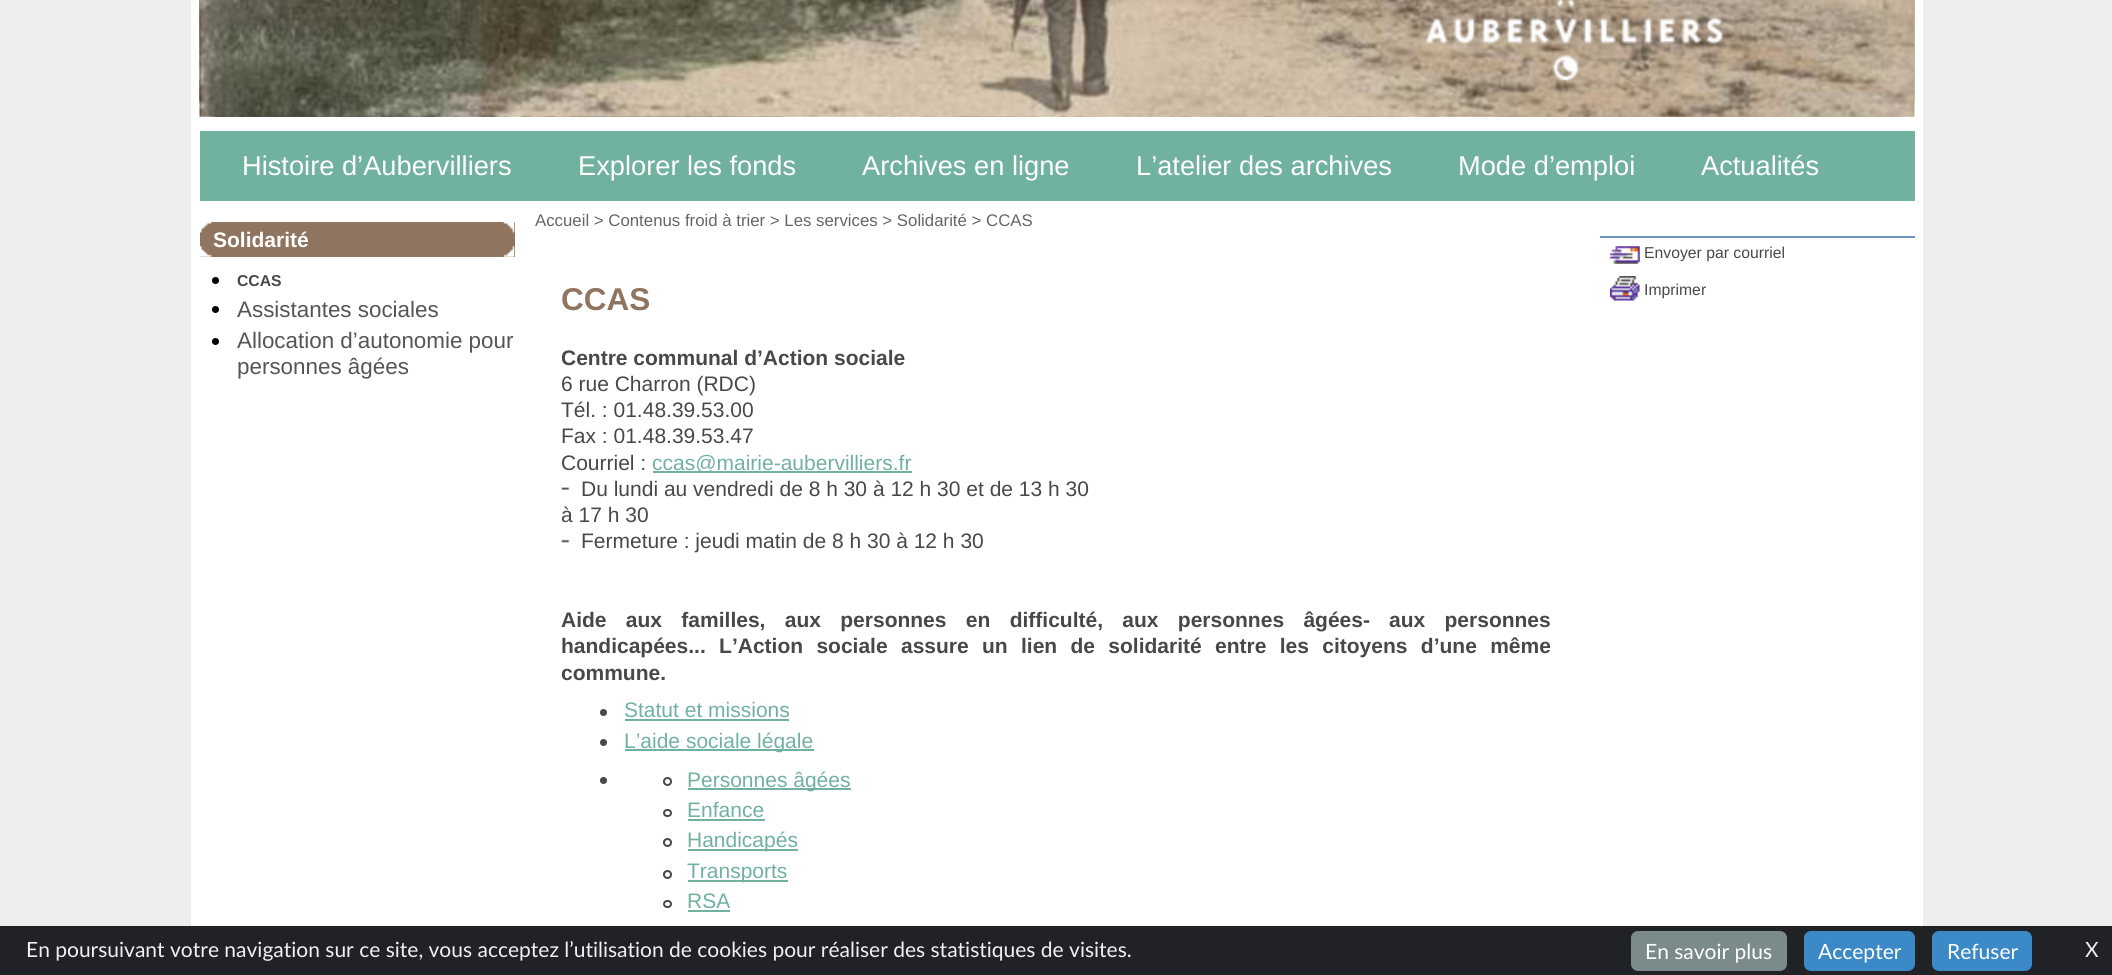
import math
import cairo

surface = cairo.ImageSurface(cairo.FORMAT_RGB24, 2112, 975)
ctx = cairo.Context(surface)
options = cairo.FontOptions()
options.set_hint_metrics(cairo.HINT_METRICS_OFF)
options.set_hint_style(cairo.HINT_STYLE_NONE)
ctx.set_font_options(options)
ctx.set_miter_limit(4)


def set_color(code):
    ctx.set_source_rgb(*(v / 255 for v in bytes.fromhex(code[-6:])))


def draw_text(x, y, s, family, size, color, bold=False, italic=False):
    ctx.select_font_face(family, cairo.FONT_SLANT_ITALIC if italic else cairo.FONT_SLANT_NORMAL, cairo.FONT_WEIGHT_BOLD if bold else cairo.FONT_WEIGHT_NORMAL)
    ctx.set_font_size(size)
    set_color(color)
    ctx.move_to(x, y)
    ctx.show_text(s)


def draw_spaced(x, y, s, letter, word):
    ctx.move_to(x, y)
    for ch in s:
        ctx.show_text(ch)
        ctx.rel_move_to(letter + word * (ch == ' '), 0)


def fill_rect(x, y, w, h, color):
    set_color(color)
    ctx.rectangle(x, y, w, h)
    ctx.fill()


def rounded_rect(x, y, w, h, r):
    ctx.new_sub_path()
    for i, (u, v) in enumerate([(x + w - r, y + h - r), (x + r, y + h - r), (x + r, y + r), (x + w - r, y + r)]):
        ctx.arc(u, v, r, i * math.pi / 2, (i + 1) * math.pi / 2)
    ctx.close_path()


def draw_image(path, x, y, w, h):
    ctx.save()
    ctx.set_source_surface(cairo.ImageSurface.create_from_png(path), x, y)
    ctx.rectangle(x, y, w, h)
    ctx.fill()
    ctx.restore()


set_color("#eeeeee")
ctx.paint()
fill_rect(191, 0, 1732, 926, "#ffffff")
draw_image("assets/img1.png", 199, 0, 1716, 117)
draw_image("assets/img2.png", 199, 0, 1716, 117)
fill_rect(200, 131, 1715, 70, "#71b1a0")
draw_text(242, 175, "Histoire d’Aubervilliers", "Liberation Sans", 27.25, "#ffffff")
draw_text(578, 175, "Explorer les fonds", "Liberation Sans", 27.25, "#ffffff")
draw_text(862, 175, "Archives en ligne", "Liberation Sans", 27.25, "#ffffff")
draw_text(1136, 175, "L’atelier des archives", "Liberation Sans", 27.25, "#ffffff")
draw_text(1458, 175, "Mode d’emploi", "Liberation Sans", 27.25, "#ffffff")
draw_text(1701, 175, "Actualités", "Liberation Sans", 27.25, "#ffffff")
fill_rect(200, 222, 315, 35, "#8f755f")
draw_image("assets/img3.png", 200, 245, 12, 12)
draw_image("assets/img4.png", 503, 245, 12, 12)
draw_image("assets/img5.png", 200, 222, 12, 11)
draw_image("assets/img6.png", 503, 222, 12, 11)
draw_text(213, 247, "Solidarité", "Liberation Sans", 21, "#ffffff", bold=True)
set_color("#000000")
ctx.new_path()
ctx.arc(215.5, 280.5, 3.5, 0, 2 * math.pi)
ctx.fill()
draw_text(237, 286, "CCAS", "Liberation Sans", 15.75, "#484848", bold=True)
set_color("#000000")
ctx.new_path()
ctx.arc(215.5, 309.5, 3.5, 0, 2 * math.pi)
ctx.fill()
draw_text(237, 317, "Assistantes sociales", "Liberation Sans", 22.4, "#555555")
set_color("#000000")
ctx.new_path()
ctx.arc(215.5, 341.5, 3.5, 0, 2 * math.pi)
ctx.fill()
draw_text(237, 348, "Allocation d’autonomie pour", "Liberation Sans", 22.4, "#555555")
draw_text(237, 374, "personnes âgées", "Liberation Sans", 22.4, "#555555")
draw_text(535, 226, "Accueil > Contenus froid à trier > Les services > Solidarité > CCAS", "Liberation Sans", 16.8, "#656565")
draw_text(561, 310, "CCAS", "Liberation Sans", 31.5, "#8f755f", bold=True)
draw_text(561, 365, "Centre communal d’Action sociale", "Liberation Sans", 21, "#484848", bold=True)
draw_text(561, 391, "6 rue Charron (RDC)", "Liberation Sans", 21, "#484848")
draw_text(561, 417, "Tél. : 01.48.39.53.00", "Liberation Sans", 21, "#484848")
draw_text(561, 443, "Fax : 01.48.39.53.47", "Liberation Sans", 21, "#484848")
draw_text(561, 470, "Courriel :", "Liberation Sans", 21, "#484848")
fill_rect(653, 471, 259, 2, "#71b1a0")
draw_text(652, 470, "ccas@mairie-aubervilliers.fr", "Liberation Sans", 21, "#71b1a0")
draw_image("assets/img7.png", 561, 487, 9, 3)
draw_text(581, 496, "Du lundi au vendredi de 8 h 30 à 12 h 30 et de 13 h 30", "Liberation Sans", 21, "#484848")
draw_text(561, 522, "à 17 h 30", "Liberation Sans", 21, "#484848")
draw_image("assets/img8.png", 561, 539, 9, 4)
draw_text(581, 548, "Fermeture : jeudi matin de 8 h 30 à 12 h 30", "Liberation Sans", 21, "#484848")
ctx.select_font_face("Liberation Sans", cairo.FONT_SLANT_NORMAL, cairo.FONT_WEIGHT_BOLD)
draw_spaced(561, 627, "Aide aux familles, aux personnes en difficulté, aux personnes âgées-", 0, 13.5)
draw_spaced(1389, 627, "aux personnes", 0, 13.5)
draw_spaced(561, 653, "handicapées... L’Action sociale assure un lien de solidarité entre les citoyens d’une même", 0, 7.5)
draw_text(561, 680, "commune.", "Liberation Sans", 21, "#484848", bold=True)
ctx.new_path()
ctx.arc(603.5, 712.5, 3.5, 0, 2 * math.pi)
ctx.fill()
draw_text(624, 717, "Statut et missions", "Liberation Sans", 21, "#71b1a0")
fill_rect(625, 719, 164, 2, "#71b1a0")
set_color("#484848")
ctx.new_path()
ctx.arc(603.5, 742.5, 3.5, 0, 2 * math.pi)
ctx.fill()
fill_rect(625, 749, 189, 2, "#71b1a0")
draw_text(624, 748, "L’aide sociale légale", "Liberation Sans", 21, "#71b1a0")
set_color("#484848")
ctx.new_path()
ctx.arc(603.5, 780.5, 3.5, 0, 2 * math.pi)
ctx.fill()
ctx.arc(667.5, 781.5, 3.5, 0, 2 * math.pi)
ctx.stroke()
fill_rect(688, 788, 163, 2, "#71b1a0")
draw_text(687, 787, "Personnes âgées", "Liberation Sans", 21, "#71b1a0")
rounded_rect(664, 810, 7, 6, 3)
set_color("#484848")
ctx.stroke()
draw_text(687, 817, "Enfance", "Liberation Sans", 21, "#71b1a0")
fill_rect(688, 819, 77, 2, "#71b1a0")
ctx.new_path()
ctx.arc(667.5, 842.5, 3.5, 0, 2 * math.pi)
set_color("#484848")
ctx.stroke()
fill_rect(688, 849, 110, 2, "#71b1a0")
draw_text(687, 847, "Handicapés", "Liberation Sans", 21, "#71b1a0")
ctx.new_path()
ctx.arc(667.5, 874.5, 3.5, 0, 2 * math.pi)
set_color("#484848")
ctx.stroke()
fill_rect(688, 880, 100, 2, "#71b1a0")
draw_text(687, 878, "Transports", "Liberation Sans", 21, "#71b1a0")
rounded_rect(664, 901, 7, 6, 3)
set_color("#484848")
ctx.stroke()
draw_text(687, 908, "RSA", "Liberation Sans", 21, "#71b1a0")
fill_rect(688, 910, 42, 2, "#71b1a0")
fill_rect(1600, 236, 315, 2, "#6c96c6")
draw_image("assets/img9.png", 1610, 246, 30, 18)
draw_text(1644, 258, "Envoyer par courriel", "Liberation Sans", 15.75, "#484848")
draw_image("assets/img10.png", 1610, 276, 30, 25)
draw_text(1644, 295, "Imprimer", "Liberation Sans", 15.75, "#484848")
fill_rect(0, 926, 2112, 49, "#202226")
draw_text(26, 957, "En poursuivant votre navigation sur ce site, vous acceptez l’utilisation de cookies pour réaliser des statistiques de visites.", "Lato", 21, "#f1f1f3")
set_color("#7b8a8b")
rounded_rect(1631, 931, 156, 40, 7)
ctx.fill()
draw_text(1645, 959, "En savoir plus", "Lato", 21, "#ffffff")
set_color("#3b89c7")
rounded_rect(1804, 931, 111, 40, 7)
ctx.fill()
draw_text(1818, 959, "Accepter", "Lato", 21, "#ffffff")
set_color("#3b89c7")
rounded_rect(1932, 931, 100, 40, 7)
ctx.fill()
draw_text(1947, 959, "Refuser", "Lato", 21, "#ffffff")
draw_text(2085, 957, "X", "Lato", 21, "#f1f1f3")
surface.write_to_png("output.png")
